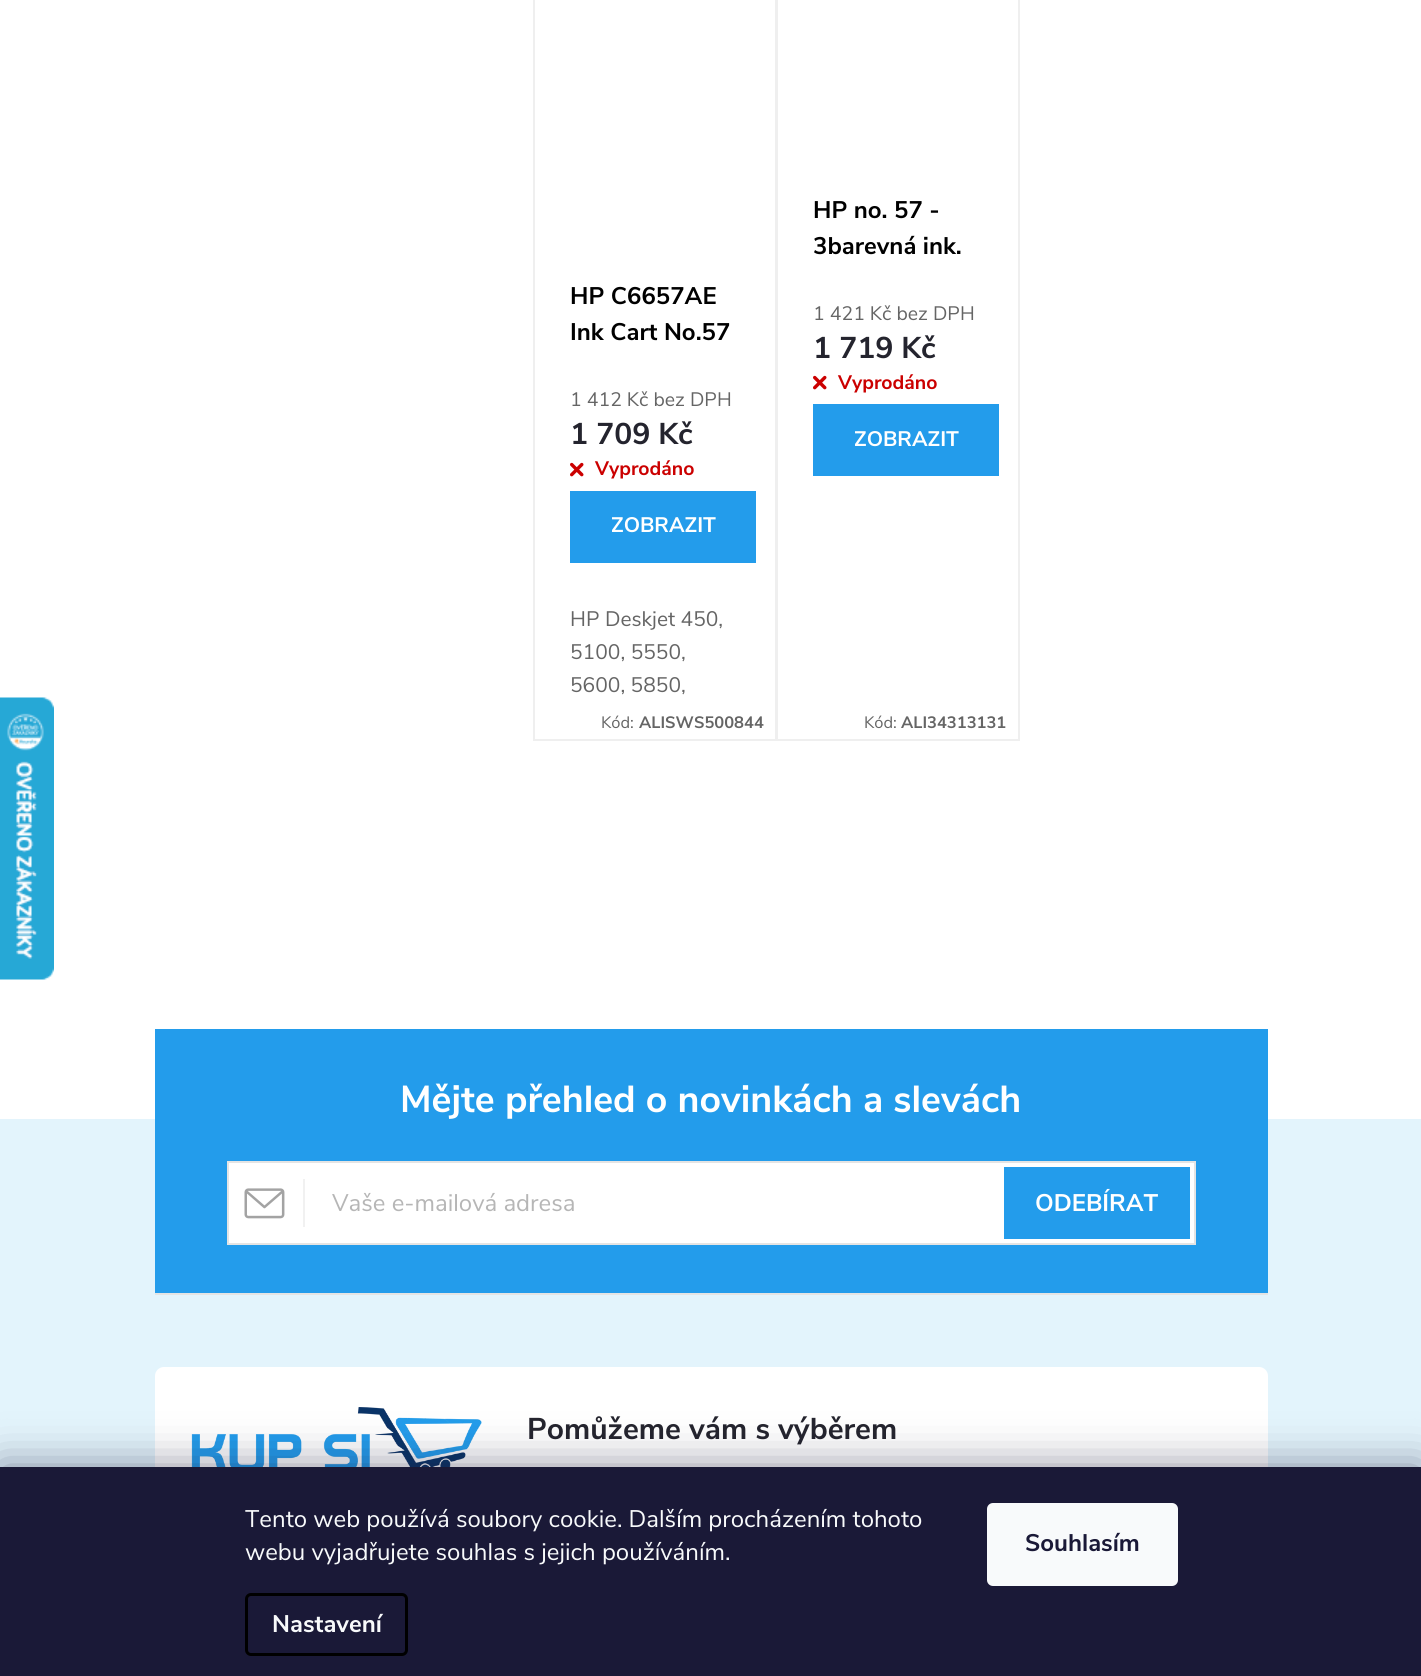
import math
import cairo

surface = cairo.ImageSurface(cairo.FORMAT_RGB24, 1421, 1676)
ctx = cairo.Context(surface)
options = cairo.FontOptions()
options.set_hint_metrics(cairo.HINT_METRICS_OFF)
options.set_hint_style(cairo.HINT_STYLE_NONE)
ctx.set_font_options(options)
ctx.set_miter_limit(4)


def set_color(code):
    ctx.set_source_rgb(*(v / 255 for v in bytes.fromhex(code[-6:])))


def draw_text(x, y, s, family, size, color, bold=False, italic=False):
    ctx.select_font_face(family, cairo.FONT_SLANT_ITALIC if italic else cairo.FONT_SLANT_NORMAL, cairo.FONT_WEIGHT_BOLD if bold else cairo.FONT_WEIGHT_NORMAL)
    ctx.set_font_size(size)
    set_color(color)
    ctx.move_to(x, y)
    ctx.show_text(s)


def fill_rect(x, y, w, h, color):
    set_color(color)
    ctx.rectangle(x, y, w, h)
    ctx.fill()


def rounded_rect(x, y, w, h, r):
    ctx.new_sub_path()
    for i, (u, v) in enumerate([(x + w - r, y + h - r), (x + r, y + h - r), (x + r, y + r), (x + w - r, y + r)]):
        ctx.arc(u, v, r, i * math.pi / 2, (i + 1) * math.pi / 2)
    ctx.close_path()


def draw_shadow(x, y, w, h, r, blur, alpha):
    ctx.push_group_with_content(cairo.CONTENT_ALPHA)
    ctx.set_operator(cairo.OPERATOR_SOURCE)
    for i in range(15, -16, -2):
        e = blur * i / 6
        if min(w, h) + 2 * e > 0:
            ctx.set_source_rgba(0, 0, 0, alpha * math.erfc((i - 1) / 8.5) / 2)
            rounded_rect(x - e, y - e, w + 2 * e, h + 2 * e, max(0, min(r + e + blur * .6, min(w, h) / 2 + e)))
            ctx.fill()
    ctx.mask(ctx.pop_group())


def draw_image(path, x, y, w, h):
    ctx.save()
    ctx.set_source_surface(cairo.ImageSurface.create_from_png(path), x, y)
    ctx.rectangle(x, y, w, h)
    ctx.fill()
    ctx.restore()


set_color("#ffffff")
ctx.paint()
draw_image("assets/img1.png", 0, 697, 54, 283)
ctx.rectangle(534, -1, 242, 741)
set_color("#efefef")
ctx.stroke()
draw_text(570, 304, "HP C6657AE", "Nunito Sans", 24, "#000000", bold=True)
draw_text(570, 340, "Ink Cart No.57", "Nunito Sans", 24, "#000000", bold=True)
draw_text(570, 406, "1 412 Kč bez DPH", "Nunito Sans", 19.5, "#656565")
draw_text(570, 444, "1 709 Kč", "Nunito Sans", 30, "#24242e", bold=True)
draw_image("assets/img2.png", 570, 462, 14, 15)
draw_text(595, 475, "Vyprodáno", "Nunito Sans", 19.5, "#cb0000", bold=True)
fill_rect(570, 491, 186, 72, "#239ceb")
draw_text(611, 532, "ZOBRAZIT", "Nunito Sans", 21, "#ffffff", bold=True)
draw_text(570, 626, "HP Deskjet 450,", "Nunito Sans", 21, "#656565")
draw_text(570, 659, "5100, 5550,", "Nunito Sans", 21, "#656565")
draw_text(570, 692, "5600, 5850,", "Nunito Sans", 21, "#656565")
draw_text(601, 728, "Kód:", "Nunito Sans", 16.5, "#656565")
draw_text(639, 728, "ALISWS500844", "Nunito Sans", 16.5, "#656565", bold=True)
ctx.rectangle(777, -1, 242, 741)
set_color("#efefef")
ctx.stroke()
draw_text(813, 218, "HP no. 57 -", "Nunito Sans", 24, "#000000", bold=True)
draw_text(813, 254, "3barevná ink.", "Nunito Sans", 24, "#000000", bold=True)
draw_text(813, 320, "1 421 Kč bez DPH", "Nunito Sans", 19.5, "#656565")
draw_text(813, 358, "1 719 Kč", "Nunito Sans", 30, "#24242e", bold=True)
draw_image("assets/img2.png", 813, 375, 14, 15)
draw_text(838, 389, "Vyprodáno", "Nunito Sans", 19.5, "#cb0000", bold=True)
fill_rect(813, 404, 186, 72, "#239ceb")
draw_text(854, 446, "ZOBRAZIT", "Nunito Sans", 21, "#ffffff", bold=True)
draw_text(864, 728, "Kód:", "Nunito Sans", 16.5, "#656565")
draw_text(901, 728, "ALI34313131", "Nunito Sans", 16.5, "#656565", bold=True)
fill_rect(0, 1119, 1421, 348, "#e3f4fc")
fill_rect(155, 1029, 1113, 264, "#239ceb")
draw_text(400, 1112, "Mějte přehled o novinkách a slevách", "Nunito Sans", 37.5, "#ffffff", bold=True)
ctx.rectangle(228, 1162, 967, 82)
ctx.fill_preserve()
set_color("#e4e4e4")
ctx.stroke()
fill_rect(303, 1179, 2, 48, "#f1f1f1")
draw_image("assets/img3.png", 244, 1188, 41, 31)
draw_text(332, 1211, "Vaše e-mailová adresa", "Nunito Sans", 24, "#b6b6b6")
fill_rect(1004, 1167, 186, 72, "#239ceb")
draw_text(1035, 1211, "ODEBÍRAT", "Nunito Sans", 24, "#ffffff", bold=True)
fill_rect(155, 1293, 1113, 2, "#e4e4e4")
set_color("#ffffff")
rounded_rect(155, 1367, 1113, 255, 9)
ctx.fill()
draw_image("assets/img4.png", 191, 1407, 291, 60)
draw_text(527, 1439, "Pomůžeme vám s výběrem", "Nunito Sans", 30, "#24242e", bold=True)
set_color("#1b1939")
draw_shadow(0, 1467, 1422, 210, 0, 22.5, 0.5)
fill_rect(0, 1467, 1421, 209, "#1a1937")
draw_text(245, 1527, "Tento web používá soubory cookie. Dalším procházením tohoto", "Nunito Sans", 24, "#f8fafb")
draw_text(245, 1560, "webu vyjadřujete souhlas s jejich používáním.", "Nunito Sans", 24, "#f8fafb")
rounded_rect(246.5, 1594.5, 160, 60, 4.5)
set_color("#000000")
ctx.set_line_width(3)
ctx.stroke()
draw_text(272, 1632, "Nastavení", "Nunito Sans", 24, "#f8fafb", bold=True)
rounded_rect(987, 1503, 191, 83, 6)
ctx.fill()
draw_text(1025, 1551, "Souhlasím", "Nunito Sans", 24, "#1a1937", bold=True)
surface.write_to_png("output.png")
